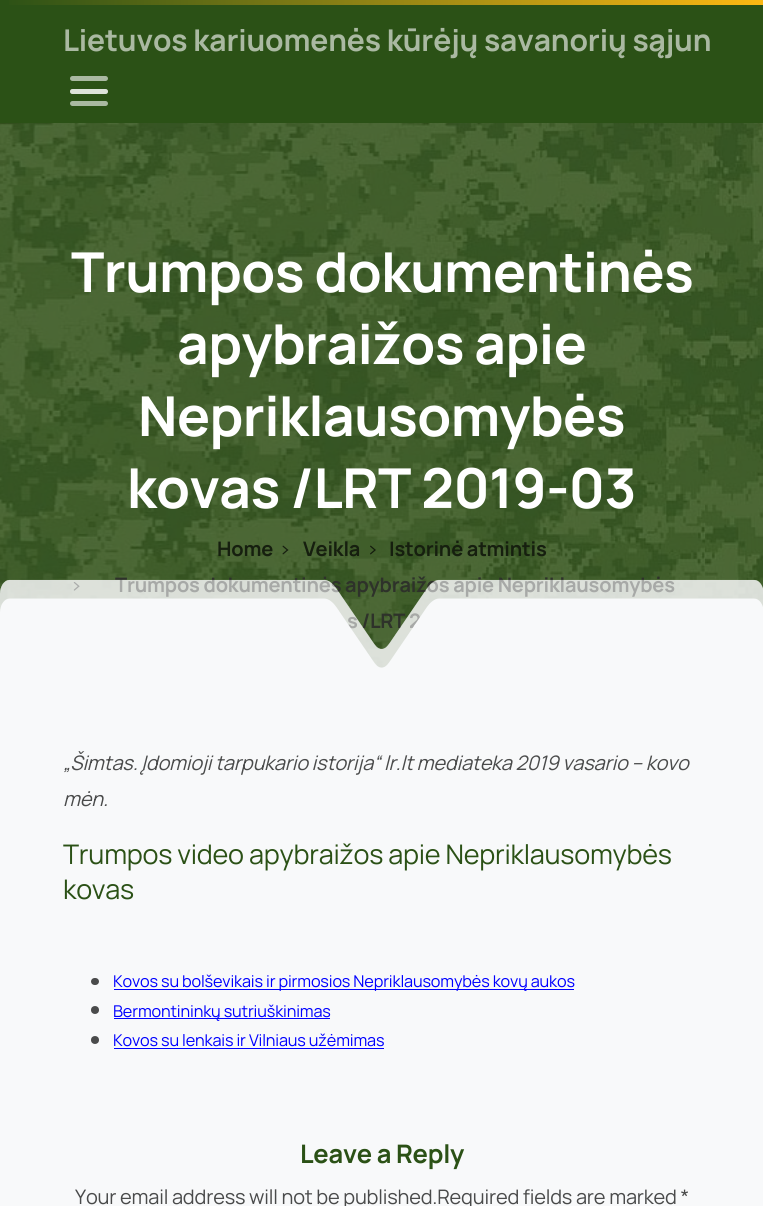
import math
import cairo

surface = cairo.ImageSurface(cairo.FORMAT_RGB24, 763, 1206)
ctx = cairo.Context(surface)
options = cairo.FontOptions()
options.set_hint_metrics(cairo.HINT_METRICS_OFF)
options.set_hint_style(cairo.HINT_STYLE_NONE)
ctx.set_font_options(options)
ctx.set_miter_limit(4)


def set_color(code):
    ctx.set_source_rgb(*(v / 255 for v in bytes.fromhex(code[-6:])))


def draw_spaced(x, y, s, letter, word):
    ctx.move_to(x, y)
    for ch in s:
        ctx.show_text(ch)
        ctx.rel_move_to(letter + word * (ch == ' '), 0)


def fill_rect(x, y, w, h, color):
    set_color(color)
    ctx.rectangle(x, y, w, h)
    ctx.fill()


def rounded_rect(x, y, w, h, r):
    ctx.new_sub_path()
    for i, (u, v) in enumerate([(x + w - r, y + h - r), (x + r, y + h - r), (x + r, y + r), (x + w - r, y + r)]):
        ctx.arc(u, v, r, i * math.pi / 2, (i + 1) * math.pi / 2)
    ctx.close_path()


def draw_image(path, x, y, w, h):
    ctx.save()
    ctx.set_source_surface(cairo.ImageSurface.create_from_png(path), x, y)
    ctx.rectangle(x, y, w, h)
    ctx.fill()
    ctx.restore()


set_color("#2b5116")
ctx.paint()
gradient = cairo.LinearGradient(0, 2.5, 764, 2.5)
gradient.add_color_stop_rgba(0, 0.169, 0.318, 0.086, 1)
gradient.add_color_stop_rgba(1, 0.988, 0.722, 0.075, 1)
ctx.set_source(gradient)
ctx.rectangle(9, 0, 754, 5)
ctx.fill()
ctx.select_font_face("Manrope", cairo.FONT_SLANT_NORMAL, cairo.FONT_WEIGHT_BOLD)
ctx.set_font_size(30)
set_color("#aab9a2")
draw_spaced(63, 51, "Lietuvos kariuomenės kūrėjų savanorių sąjun", -0.15, 0)
rounded_rect(70, 89, 38, 5, 2.5)
ctx.fill()
rounded_rect(70, 76, 38, 5, 2.5)
ctx.fill()
ctx.set_source_rgba(1, 1, 1, 0.6)
rounded_rect(70, 89, 38, 5, 2.5)
ctx.fill()
set_color("#aab9a2")
rounded_rect(70, 101, 38, 5, 2.5)
ctx.fill()
draw_image("assets/img1.png", 0, 123, 763, 545)
ctx.set_font_size(55)
set_color("#ffffff")
draw_spaced(71, 292, "Trumpos dokumentinės", -0.55, 0)
draw_spaced(177, 364, "apybraižos apie", -0.55, 0)
draw_spaced(138, 436, "Nepriklausomybės", -0.55, 0)
draw_spaced(127, 508, "kovas /LRT 2019-03", -0.55, 0)
ctx.set_font_size(20)
set_color("#161f0f")
draw_spaced(217, 556, "Home", -0.2, 0)
draw_image("assets/img2.png", 282, 545, 7, 10)
draw_spaced(303, 556, "Veikla", -0.2, 0)
draw_image("assets/img3.png", 370, 545, 6, 10)
draw_spaced(389, 556, "Istorinė atmintis", -0.2, 0)
draw_image("assets/img4.png", 73, 582, 7, 9)
set_color("#2e322a")
draw_spaced(115, 592, "Trumpos dokumentinės apybraižos apie Nepriklausomybės", -0.2, 0)
draw_spaced(347, 628, "s /LRT 2", -0.2, 0)
draw_image("assets/img5.png", 0, 579, 763, 106)
fill_rect(0, 685, 763, 521, "#f8f9fa")
ctx.select_font_face("Manrope", cairo.FONT_SLANT_ITALIC)
set_color("#4a4b4b")
draw_spaced(63, 770, "„Šimtas. Įdomioji tarpukario istorija“ lr.lt mediateka 2019 vasario – kovo", -0.2, 0)
draw_spaced(63, 806, "mėn.", -0.2, 0)
ctx.select_font_face("Manrope")
ctx.set_font_size(27)
set_color("#2b5116")
draw_spaced(63, 864, "Trumpos video apybraižos apie Nepriklausomybės", -0.25, 0)
draw_spaced(63, 899, "kovas", -0.25, 0)
set_color("#4a4b4b")
rounded_rect(91, 978, 8, 7, 3.5)
ctx.fill()
fill_rect(114, 989, 460, 1, "#0000ff")
ctx.set_font_size(16.25)
draw_spaced(113, 987, "Kovos su bolševikais ir pirmosios Nepriklausomybės kovų aukos", -0.15, 0)
set_color("#4a4b4b")
ctx.new_path()
ctx.arc(95, 1010, 4, 0, 2 * math.pi)
ctx.fill()
fill_rect(114, 1018, 216, 1, "#0000ff")
draw_spaced(113, 1017, "Bermontininkų sutriuškinimas", -0.15, 0)
set_color("#4a4b4b")
ctx.new_path()
ctx.arc(95, 1040, 4, 0, 2 * math.pi)
ctx.fill()
set_color("#0000ff")
draw_spaced(113, 1046, "Kovos su lenkais ir Vilniaus užėmimas", -0.15, 0)
fill_rect(114, 1048, 270, 1, "#0000ff")
ctx.select_font_face("Manrope", cairo.FONT_SLANT_NORMAL, cairo.FONT_WEIGHT_BOLD)
ctx.set_font_size(25.5)
set_color("#2b5116")
draw_spaced(300, 1163, "Leave a Reply", -0.25, 0)
ctx.select_font_face("Manrope")
ctx.set_font_size(20)
set_color("#4a4b4b")
draw_spaced(75, 1204, "Your email address will not be published.Required fields are marked *", -0.2, 0)
surface.write_to_png("output.png")
